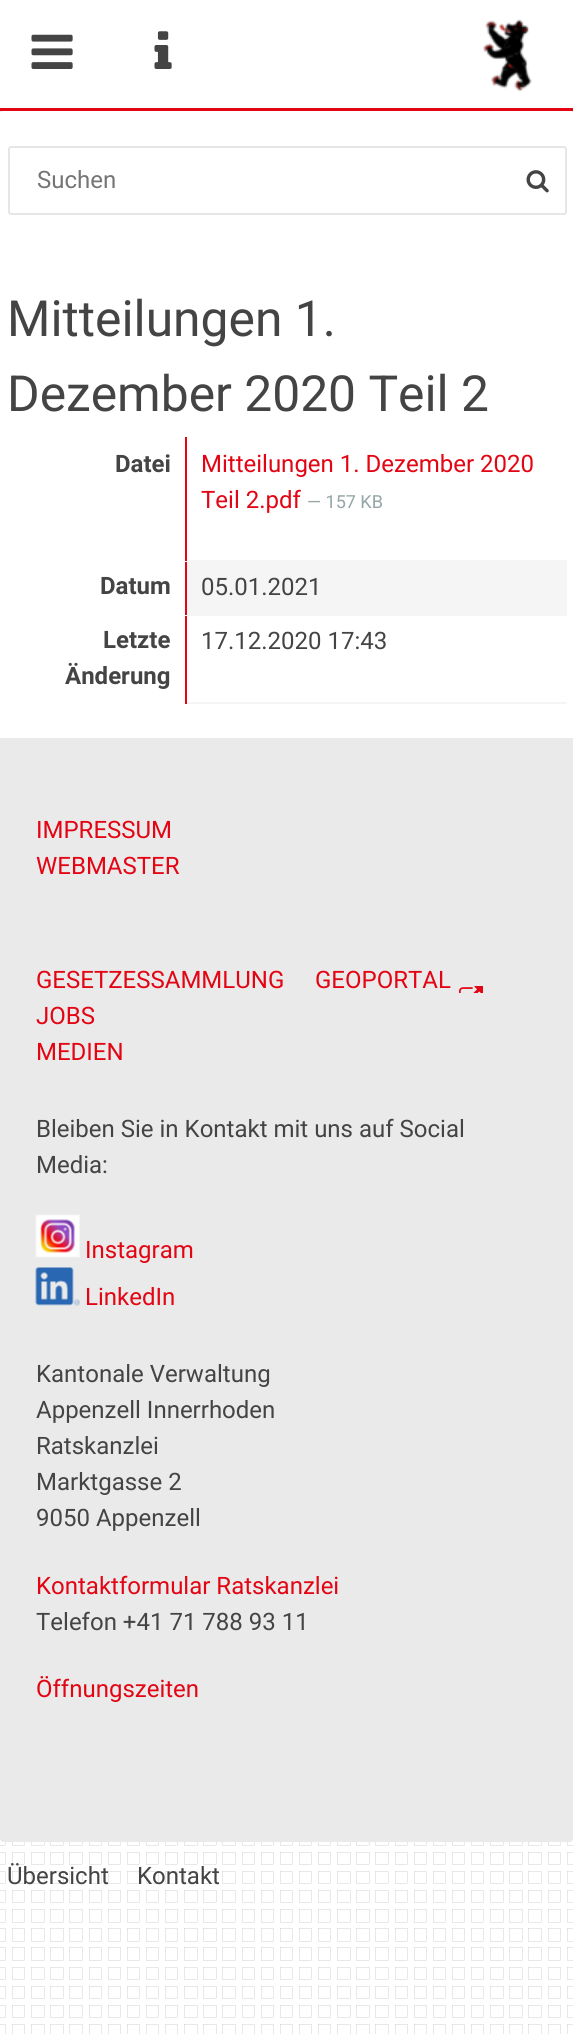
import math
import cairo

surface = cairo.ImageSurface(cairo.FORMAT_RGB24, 573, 2034)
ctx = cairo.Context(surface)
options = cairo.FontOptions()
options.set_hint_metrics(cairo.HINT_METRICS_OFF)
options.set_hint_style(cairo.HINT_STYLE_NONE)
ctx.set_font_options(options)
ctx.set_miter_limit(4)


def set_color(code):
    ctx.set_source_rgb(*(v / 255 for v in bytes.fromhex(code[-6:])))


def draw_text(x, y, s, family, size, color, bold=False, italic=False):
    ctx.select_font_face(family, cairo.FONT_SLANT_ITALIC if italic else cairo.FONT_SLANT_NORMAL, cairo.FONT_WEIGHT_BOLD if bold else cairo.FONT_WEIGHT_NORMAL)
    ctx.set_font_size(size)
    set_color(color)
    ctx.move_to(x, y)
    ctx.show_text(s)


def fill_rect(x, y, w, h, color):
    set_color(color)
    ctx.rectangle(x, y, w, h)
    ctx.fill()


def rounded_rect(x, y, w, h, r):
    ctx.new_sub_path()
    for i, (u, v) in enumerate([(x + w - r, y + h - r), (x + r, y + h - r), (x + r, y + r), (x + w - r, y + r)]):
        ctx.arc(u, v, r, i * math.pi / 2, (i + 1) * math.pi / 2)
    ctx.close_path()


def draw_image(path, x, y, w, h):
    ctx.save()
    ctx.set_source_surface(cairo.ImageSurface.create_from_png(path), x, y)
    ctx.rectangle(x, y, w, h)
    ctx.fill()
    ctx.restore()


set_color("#ffffff")
ctx.paint()
draw_image("assets/img1.png", 0, 111, 573, 1923)
fill_rect(0, 108, 573, 3, "#e30513")
draw_image("assets/img2.png", 31, 34, 42, 35)
draw_image("assets/img3.png", 154, 31, 18, 38)
draw_image("assets/img4.png", 483, 19, 49, 73)
set_color("#ffffff")
rounded_rect(0, 111, 573, 1731, 3)
ctx.fill()
rounded_rect(9, 147, 557, 67, 2)
set_color("#e6e6e6")
ctx.stroke()
draw_text(37, 188, "Suchen", "Roboto", 24, "#757575")
draw_image("assets/img5.png", 526, 170, 23, 23)
draw_text(7, 336, "Mitteilungen 1.", "Roboto", 49.75, "#444444")
draw_text(7, 411, "Dezember 2020 Teil 2", "Roboto", 49.75, "#444444")
fill_rect(185, 702, 382, 2, "#f5f5f5")
fill_rect(185, 614, 2, 90, "#e30513")
fill_rect(185, 614, 382, 2, "#f5f5f5")
fill_rect(185, 560, 2, 55, "#e30513")
fill_rect(185, 560, 382, 2, "#f5f5f5")
fill_rect(185, 437, 2, 124, "#e30513")
draw_text(115, 472, "Datei", "Roboto", 24, "#444444", bold=True)
draw_text(201, 472, "Mitteilungen 1. Dezember 2020", "Roboto", 24, "#e30513")
draw_text(201, 508, "Teil 2.pdf", "Roboto", 24, "#e30513")
draw_text(307, 508, "— 157 KB", "Roboto", 18, "#95a5a6")
draw_text(100, 594, "Datum", "Roboto", 24, "#444444", bold=True)
fill_rect(187, 562, 380, 52, "#f5f5f5")
draw_text(201, 595, "05.01.2021", "Roboto", 24, "#444444")
draw_text(103, 648, "Letzte", "Roboto", 24, "#444444", bold=True)
draw_text(65, 684, "Änderung", "Roboto", 24, "#444444", bold=True)
draw_text(201, 649, "17.12.2020 17:43", "Roboto", 24, "#444444")
set_color("#eaeaea")
ctx.new_path()
ctx.move_to(0, 738)
ctx.line_to(573, 738)
ctx.line_to(573, 1839)
ctx.curve_to(573, 1840.5, 571.5, 1842, 570, 1842)
ctx.line_to(3, 1842)
ctx.curve_to(1.5, 1842, 0, 1840.5, 0, 1839)
ctx.close_path()
ctx.fill()
draw_text(36, 838, "IMPRESSUM", "Roboto", 24, "#e30513")
draw_text(36, 874, "WEBMASTER", "Roboto", 24, "#e30513")
draw_text(36, 988, "GESETZESSAMMLUNG", "Roboto", 24, "#e30513")
draw_text(315, 988, "GEOPORTAL", "Roboto", 24, "#e30513")
draw_image("assets/img6.png", 459, 986, 24, 7)
draw_text(36, 1024, "JOBS", "Roboto", 24, "#e30513")
draw_text(36, 1060, "MEDIEN", "Roboto", 24, "#e30513")
draw_text(36, 1137, "Bleiben Sie in Kontakt mit uns auf Social", "Roboto", 24, "#444444")
draw_text(36, 1173, "Media:", "Roboto", 24, "#444444")
draw_image("assets/img7.png", 35, 1214, 45, 44)
draw_text(85, 1258, "Instagram", "Roboto", 24, "#e30513")
draw_image("assets/img8.png", 35, 1267, 45, 39)
draw_text(85, 1305, "LinkedIn", "Roboto", 24, "#e30513")
draw_text(36, 1382, "Kantonale Verwaltung", "Roboto", 24, "#444444")
draw_text(36, 1418, "Appenzell Innerrhoden", "Roboto", 24, "#444444")
draw_text(36, 1454, "Ratskanzlei", "Roboto", 24, "#444444")
draw_text(36, 1490, "Marktgasse 2", "Roboto", 24, "#444444")
draw_text(36, 1526, "9050 Appenzell", "Roboto", 24, "#444444")
draw_text(36, 1594, "Kontaktformular Ratskanzlei", "Roboto", 24, "#e30513")
draw_text(36, 1630, "Telefon +41 71 788 93 11", "Roboto", 24, "#444444")
draw_text(36, 1697, "Öffnungszeiten", "Roboto", 24, "#e30513")
draw_text(7, 1884, "Übersicht", "Roboto", 24, "#444444")
draw_text(137, 1884, "Kontakt", "Roboto", 24, "#444444")
surface.write_to_png("output.png")
